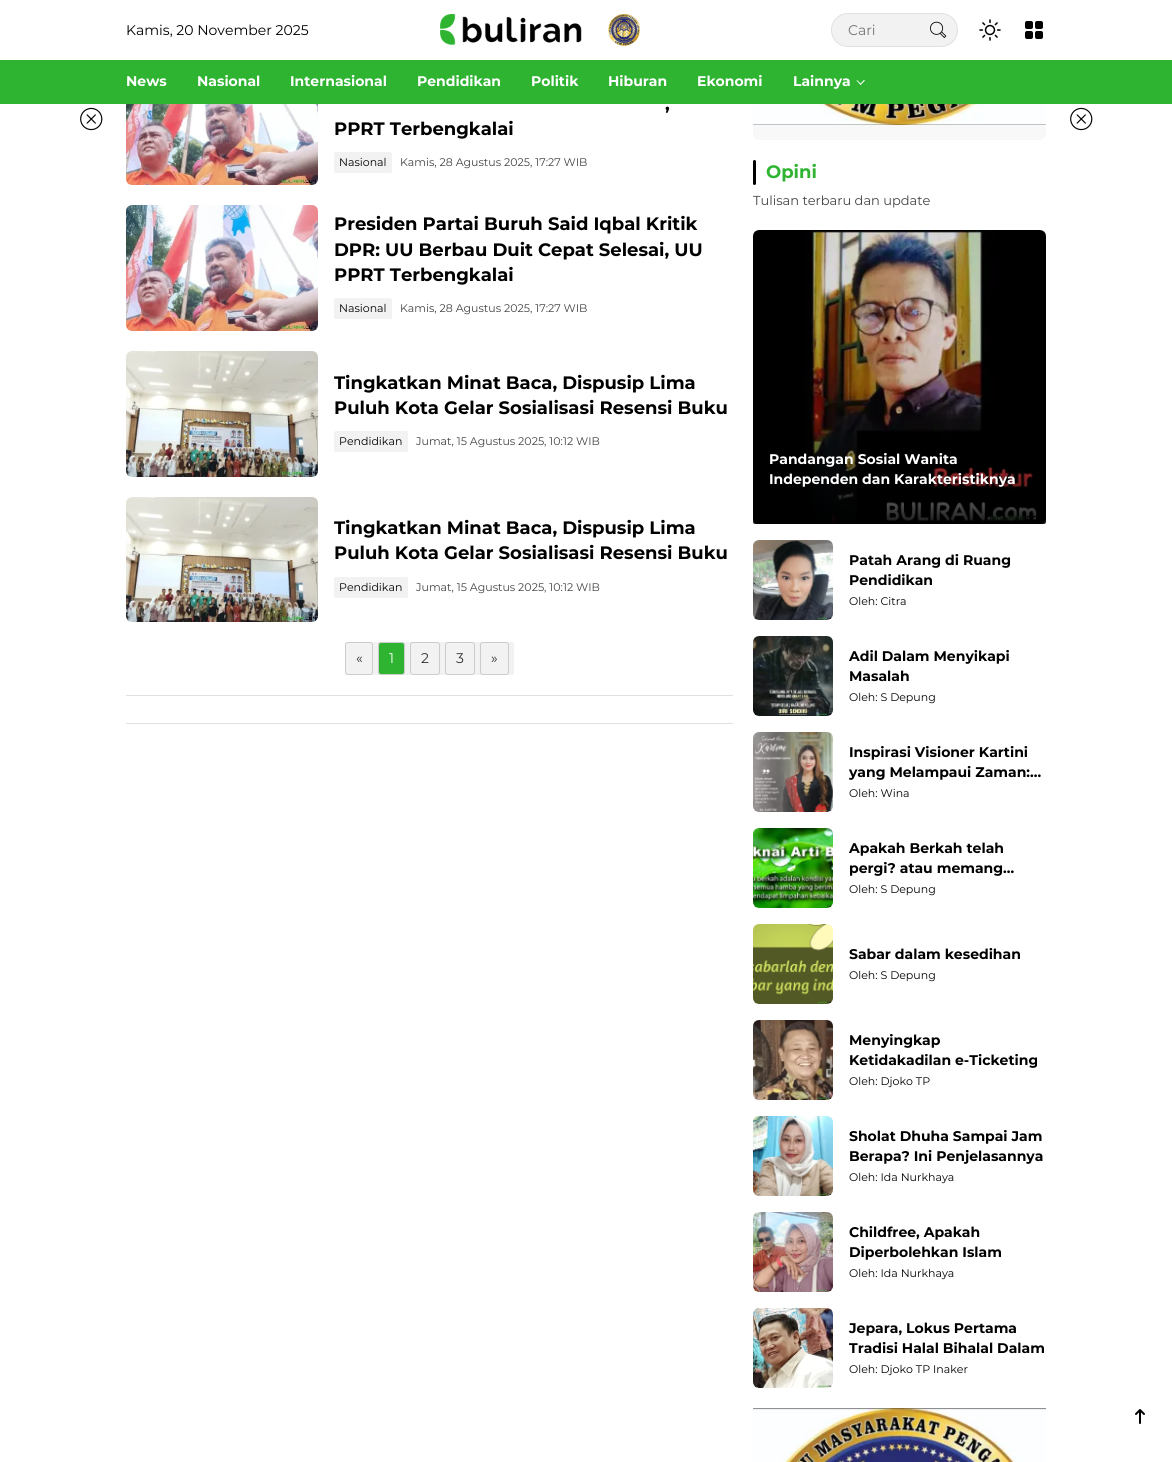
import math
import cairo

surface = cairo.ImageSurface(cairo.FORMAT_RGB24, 1172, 1462)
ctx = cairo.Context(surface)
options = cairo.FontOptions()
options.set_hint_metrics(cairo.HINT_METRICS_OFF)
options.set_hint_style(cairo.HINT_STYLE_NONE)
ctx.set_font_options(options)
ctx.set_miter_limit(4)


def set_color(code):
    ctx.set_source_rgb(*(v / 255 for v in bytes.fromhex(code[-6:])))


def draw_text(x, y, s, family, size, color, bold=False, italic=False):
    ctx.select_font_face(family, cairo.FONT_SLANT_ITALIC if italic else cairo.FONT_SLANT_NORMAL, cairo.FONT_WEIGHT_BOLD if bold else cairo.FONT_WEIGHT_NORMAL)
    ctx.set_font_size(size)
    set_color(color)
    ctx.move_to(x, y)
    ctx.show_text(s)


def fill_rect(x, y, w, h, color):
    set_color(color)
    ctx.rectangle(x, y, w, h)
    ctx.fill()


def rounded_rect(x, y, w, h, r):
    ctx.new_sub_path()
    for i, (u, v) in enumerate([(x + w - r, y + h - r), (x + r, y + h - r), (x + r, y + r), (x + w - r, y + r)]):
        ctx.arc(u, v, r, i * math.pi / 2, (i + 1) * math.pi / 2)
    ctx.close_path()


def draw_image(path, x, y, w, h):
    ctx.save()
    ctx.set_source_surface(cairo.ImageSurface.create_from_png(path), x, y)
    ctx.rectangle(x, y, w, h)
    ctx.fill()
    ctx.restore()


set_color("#ffffff")
ctx.paint()
set_color("#f8f8f8")
rounded_rect(753, -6, 293, 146, 6)
ctx.fill()
fill_rect(753, 0, 293, 60, "#ffffff")
draw_text(126, 35, "Kamis, 20 November 2025", "Montserrat", 14, "#000000")
draw_image("assets/img1.png", 440, 14, 200, 32)
set_color("#f2f2f2")
rounded_rect(831.5, 13.5, 126, 33, 16.5)
ctx.fill_preserve()
set_color("#e0e0e0")
ctx.set_line_width(1)
ctx.stroke()
draw_text(848, 35, "Cari", "Montserrat", 14, "#757575")
draw_image("assets/img2.png", 930, 21, 17, 17)
draw_image("assets/img3.png", 979, 19, 22, 22)
draw_image("assets/img4.png", 1025, 21, 18, 18)
fill_rect(0, 60, 1172, 44, "#2fb432")
draw_text(126, 86, "News", "Montserrat", 14, "#ffffff", bold=True)
draw_text(197, 86, "Nasional", "Montserrat", 14, "#ffffff", bold=True)
draw_text(290, 86, "Internasional", "Montserrat", 14, "#ffffff", bold=True)
draw_text(417, 86, "Pendidikan", "Montserrat", 14, "#ffffff", bold=True)
draw_text(531, 86, "Politik", "Montserrat", 14, "#ffffff", bold=True)
draw_text(608, 86, "Hiburan", "Montserrat", 14, "#ffffff", bold=True)
draw_text(697, 86, "Ekonomi", "Montserrat", 14, "#ffffff", bold=True)
draw_text(793, 86, "Lainnya", "Montserrat", 14, "#ffffff", bold=True)
ctx.new_path()
ctx.move_to(864, 80)
ctx.line_to(865, 80.5)
ctx.line_to(860.5, 85)
ctx.line_to(860, 84)
ctx.close_path()
ctx.fill()
ctx.new_path()
ctx.move_to(857, 80)
ctx.line_to(861, 84)
ctx.line_to(860.5, 85)
ctx.line_to(856.5, 80.5)
ctx.close_path()
ctx.fill()
draw_image("assets/img5.png", 80, 107, 23, 24)
draw_image("assets/img6.png", 126, 104, 192, 81)
draw_text(665, 110, ",", "Montserrat", 18, "#000000", bold=True)
draw_text(334, 135, "PPRT Terbengkalai", "Montserrat", 18, "#000000", bold=True)
set_color("#f2f2f2")
rounded_rect(334, 152, 58, 21, 2)
ctx.fill()
draw_text(339, 166, "Nasional", "Montserrat", 11, "#000000")
draw_text(400, 166, "Kamis, 28 Agustus 2025, 17:27 WIB", "Montserrat", 11, "#444444")
draw_image("assets/img7.png", 126, 205, 192, 126)
draw_text(334, 230, "Presiden Partai Buruh Said Iqbal Kritik", "Montserrat", 18, "#000000", bold=True)
draw_text(334, 256, "DPR: UU Berbau Duit Cepat Selesai, UU", "Montserrat", 18, "#000000", bold=True)
draw_text(334, 281, "PPRT Terbengkalai", "Montserrat", 18, "#000000", bold=True)
set_color("#f2f2f2")
rounded_rect(334, 298, 58, 21, 2)
ctx.fill()
draw_text(339, 312, "Nasional", "Montserrat", 11, "#000000")
draw_text(400, 312, "Kamis, 28 Agustus 2025, 17:27 WIB", "Montserrat", 11, "#444444")
draw_image("assets/img8.png", 126, 351, 192, 126)
draw_text(334, 389, "Tingkatkan Minat Baca, Dispusip Lima", "Montserrat", 18, "#000000", bold=True)
draw_text(334, 414, "Puluh Kota Gelar Sosialisasi Resensi Buku", "Montserrat", 18, "#000000", bold=True)
set_color("#f2f2f2")
rounded_rect(334, 431, 74, 21, 2)
ctx.fill()
draw_text(339, 445, "Pendidikan", "Montserrat", 11, "#000000")
draw_text(416, 445, "Jumat, 15 Agustus 2025, 10:12 WIB", "Montserrat", 11, "#444444")
draw_image("assets/img9.png", 126, 497, 192, 125)
draw_text(334, 534, "Tingkatkan Minat Baca, Dispusip Lima", "Montserrat", 18, "#000000", bold=True)
draw_text(334, 559, "Puluh Kota Gelar Sosialisasi Resensi Buku", "Montserrat", 18, "#000000", bold=True)
set_color("#f2f2f2")
rounded_rect(334, 577, 74, 21, 2)
ctx.fill()
draw_text(339, 591, "Pendidikan", "Montserrat", 11, "#000000")
draw_text(416, 591, "Jumat, 15 Agustus 2025, 10:12 WIB", "Montserrat", 11, "#444444")
set_color("#f2f2f2")
rounded_rect(345, 642, 169, 33, 2)
ctx.fill()
rounded_rect(345.5, 642.5, 27, 32, 2.5)
set_color("#cccccc")
ctx.stroke()
draw_text(356, 663, "«", "Montserrat", 14, "#333333")
set_color("#2fb432")
rounded_rect(378.5, 642.5, 26, 32, 2.5)
ctx.fill_preserve()
set_color("#cccccc")
ctx.stroke()
draw_text(389, 663, "1", "Montserrat", 14, "#ffffff")
rounded_rect(410.5, 642.5, 29, 32, 2.5)
set_color("#cccccc")
ctx.stroke()
draw_text(421, 663, "2", "Montserrat", 14, "#333333")
rounded_rect(445.5, 642.5, 29, 32, 2.5)
set_color("#cccccc")
ctx.stroke()
draw_text(456, 663, "3", "Montserrat", 14, "#333333")
rounded_rect(480.5, 642.5, 28, 32, 2.5)
set_color("#cccccc")
ctx.stroke()
draw_text(491, 663, "»", "Montserrat", 14, "#333333")
fill_rect(126, 695, 607, 1, "#e0e0e0")
fill_rect(126, 723, 607, 1, "#e0e0e0")
draw_image("assets/img10.png", 753, 104, 293, 21)
set_color("#010101")
rounded_rect(753, 160, 3, 25, 1.5)
ctx.fill()
draw_text(766, 178, "Opini", "Montserrat", 18, "#2fb432", bold=True)
draw_text(753, 205, "Tulisan terbaru dan update", "Montserrat", 13, "#444444")
draw_image("assets/img11.png", 753, 230, 293, 294)
gradient = cairo.LinearGradient(900, 524, 900, 434)
gradient.add_color_stop_rgba(0, 0, 0, 0, 0.9)
gradient.add_color_stop_rgba(1, 0, 0, 0, 0)
ctx.set_source(gradient)
ctx.new_path()
ctx.move_to(753, 434)
ctx.line_to(1046, 434)
ctx.line_to(1046, 522)
ctx.curve_to(1046, 523, 1045, 524, 1044, 524)
ctx.line_to(755, 524)
ctx.curve_to(754, 524, 753, 523, 753, 522)
ctx.close_path()
ctx.fill()
draw_text(769, 464, "Pandangan Sosial Wanita", "Montserrat", 14, "#ffffff", bold=True)
draw_text(769, 484, "Independen dan Karakteristiknya", "Montserrat", 14, "#ffffff", bold=True)
draw_image("assets/img12.png", 753, 540, 80, 80)
draw_text(849, 565, "Patah Arang di Ruang", "Montserrat", 14, "#000000", bold=True)
draw_text(849, 585, "Pendidikan", "Montserrat", 14, "#000000", bold=True)
draw_text(849, 605, "Oleh: Citra", "Montserrat", 11, "#000000")
draw_image("assets/img13.png", 753, 636, 80, 80)
draw_text(849, 661, "Adil Dalam Menyikapi", "Montserrat", 14, "#000000", bold=True)
draw_text(849, 681, "Masalah", "Montserrat", 14, "#000000", bold=True)
draw_text(849, 701, "Oleh: S Depung", "Montserrat", 11, "#000000")
draw_image("assets/img14.png", 753, 732, 80, 80)
draw_text(849, 757, "Inspirasi Visioner Kartini", "Montserrat", 14, "#000000", bold=True)
ctx.save()
ctx.rectangle(849, 743, 197, 39)
ctx.clip()
draw_text(849, 777, "yang Melampaui Zaman:…", "Montserrat", 14, "#000000", bold=True)
ctx.restore()
draw_text(849, 797, "Oleh: Wina", "Montserrat", 11, "#000000")
draw_image("assets/img15.png", 753, 828, 80, 80)
draw_text(849, 853, "Apakah Berkah telah", "Montserrat", 14, "#000000", bold=True)
draw_text(849, 873, "pergi? atau memang…", "Montserrat", 14, "#000000", bold=True)
draw_text(849, 893, "Oleh: S Depung", "Montserrat", 11, "#000000")
draw_image("assets/img16.png", 753, 924, 80, 80)
draw_text(849, 959, "Sabar dalam kesedihan", "Montserrat", 14, "#000000", bold=True)
draw_text(849, 979, "Oleh: S Depung", "Montserrat", 11, "#000000")
draw_image("assets/img17.png", 753, 1020, 80, 80)
draw_text(849, 1045, "Menyingkap", "Montserrat", 14, "#000000", bold=True)
draw_text(849, 1065, "Ketidakadilan e-Ticketing", "Montserrat", 14, "#000000", bold=True)
draw_text(849, 1085, "Oleh: Djoko TP", "Montserrat", 11, "#000000")
draw_image("assets/img18.png", 753, 1116, 80, 80)
draw_text(849, 1141, "Sholat Dhuha Sampai Jam", "Montserrat", 14, "#000000", bold=True)
draw_text(849, 1161, "Berapa? Ini Penjelasannya", "Montserrat", 14, "#000000", bold=True)
draw_text(849, 1181, "Oleh: Ida Nurkhaya", "Montserrat", 11, "#000000")
draw_image("assets/img19.png", 753, 1212, 80, 80)
draw_text(849, 1237, "Childfree, Apakah", "Montserrat", 14, "#000000", bold=True)
draw_text(849, 1257, "Diperbolehkan Islam", "Montserrat", 14, "#000000", bold=True)
draw_text(849, 1277, "Oleh: Ida Nurkhaya", "Montserrat", 11, "#000000")
draw_image("assets/img20.png", 753, 1308, 80, 80)
draw_text(849, 1333, "Jepara, Lokus Pertama", "Montserrat", 14, "#000000", bold=True)
draw_text(849, 1353, "Tradisi Halal Bihalal Dalam", "Montserrat", 14, "#000000", bold=True)
draw_text(849, 1373, "Oleh: Djoko TP Inaker", "Montserrat", 11, "#000000")
draw_image("assets/img21.png", 753, 1408, 293, 54)
draw_image("assets/img5.png", 1070, 107, 23, 24)
draw_image("assets/img22.png", 1135, 1409, 10, 15)
surface.write_to_png("output.png")
